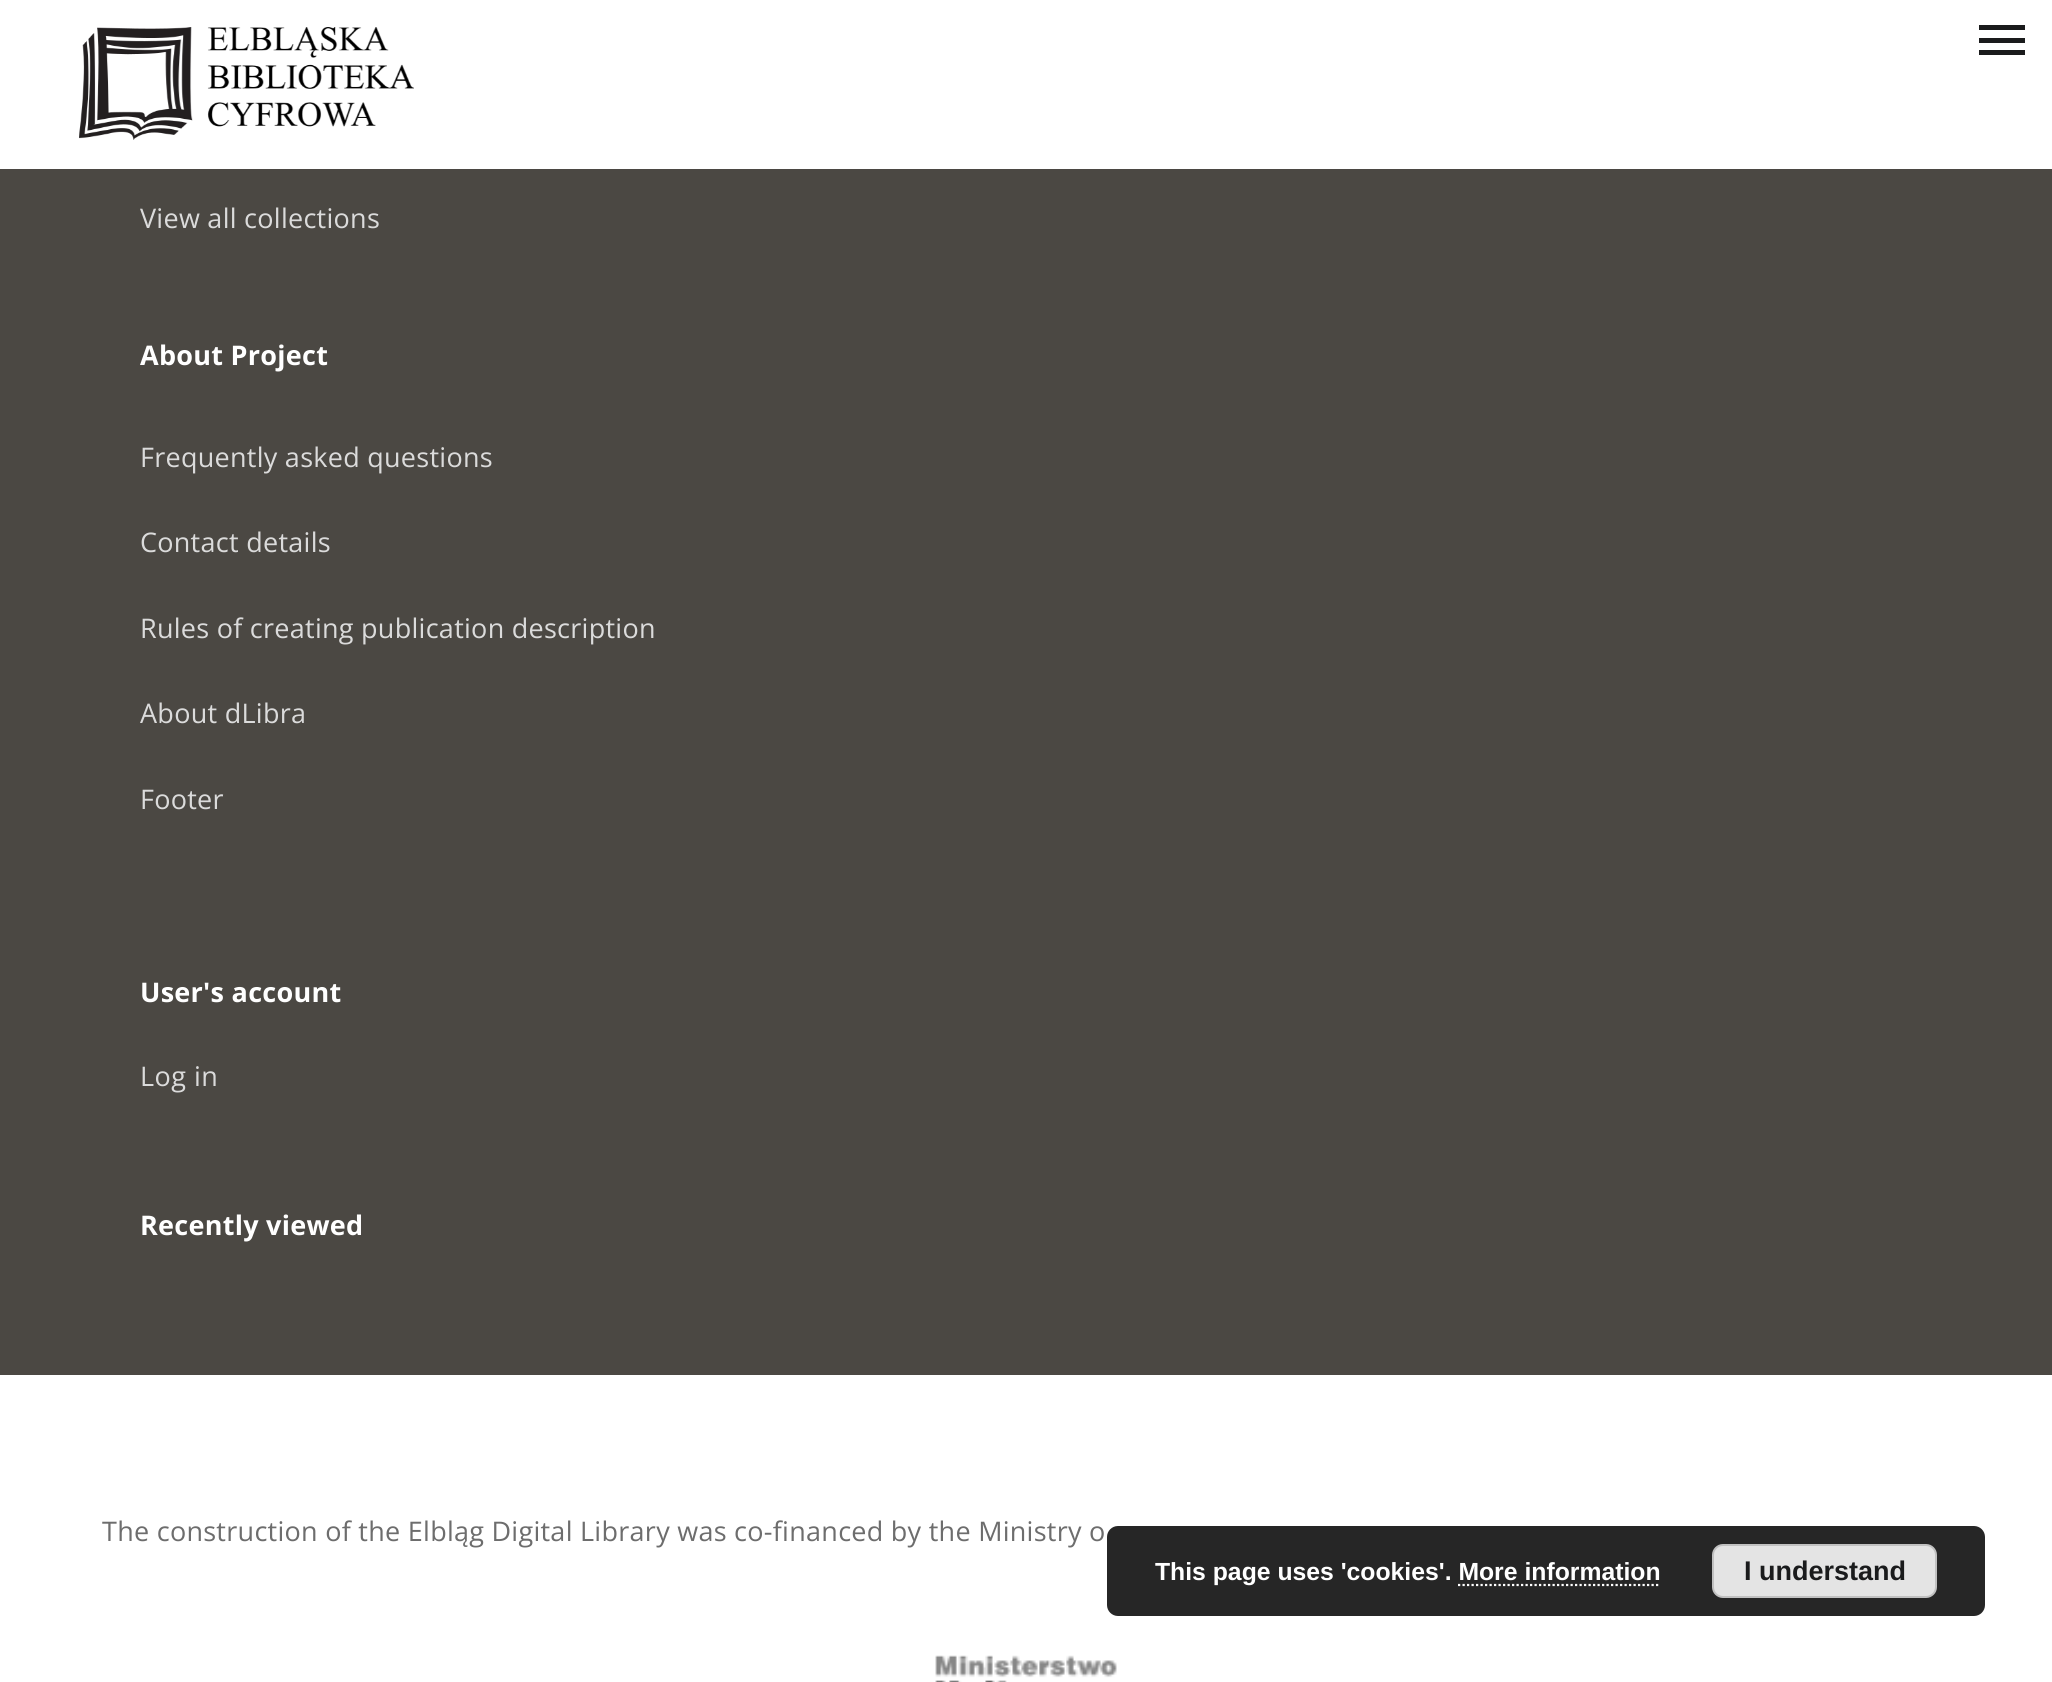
import math
import cairo

surface = cairo.ImageSurface(cairo.FORMAT_RGB24, 2052, 1682)
ctx = cairo.Context(surface)
options = cairo.FontOptions()
options.set_hint_metrics(cairo.HINT_METRICS_OFF)
options.set_hint_style(cairo.HINT_STYLE_NONE)
ctx.set_font_options(options)
ctx.set_miter_limit(4)


def set_color(code):
    ctx.set_source_rgb(*(v / 255 for v in bytes.fromhex(code[-6:])))


def draw_text(x, y, s, family, size, color, bold=False, italic=False):
    ctx.select_font_face(family, cairo.FONT_SLANT_ITALIC if italic else cairo.FONT_SLANT_NORMAL, cairo.FONT_WEIGHT_BOLD if bold else cairo.FONT_WEIGHT_NORMAL)
    ctx.set_font_size(size)
    set_color(color)
    ctx.move_to(x, y)
    ctx.show_text(s)


def draw_spaced(x, y, s, letter, word):
    ctx.move_to(x, y)
    for ch in s:
        ctx.show_text(ch)
        ctx.rel_move_to(letter + word * (ch == ' '), 0)


def fill_rect(x, y, w, h, color):
    set_color(color)
    ctx.rectangle(x, y, w, h)
    ctx.fill()


def rounded_rect(x, y, w, h, r):
    ctx.new_sub_path()
    for i, (u, v) in enumerate([(x + w - r, y + h - r), (x + r, y + h - r), (x + r, y + r), (x + w - r, y + r)]):
        ctx.arc(u, v, r, i * math.pi / 2, (i + 1) * math.pi / 2)
    ctx.close_path()


def draw_image(path, x, y, w, h):
    ctx.save()
    ctx.set_source_surface(cairo.ImageSurface.create_from_png(path), x, y)
    ctx.rectangle(x, y, w, h)
    ctx.fill()
    ctx.restore()


set_color("#4b4843")
ctx.paint()
fill_rect(0, 0, 2052, 169, "#ffffff")
draw_image("assets/img1.png", 79, 27, 335, 113)
set_color("#1a1b1c")
ctx.new_path()
ctx.move_to(2025, 30)
ctx.line_to(1979, 30)
ctx.line_to(1979, 25)
ctx.line_to(2025, 25)
ctx.close_path()
ctx.move_to(2025, 38)
ctx.line_to(1979, 38)
ctx.line_to(1979, 43)
ctx.line_to(2025, 43)
ctx.close_path()
ctx.move_to(2025, 50)
ctx.line_to(1979, 50)
ctx.line_to(1979, 55)
ctx.line_to(2025, 55)
ctx.close_path()
ctx.fill()
ctx.select_font_face("Open Sans")
ctx.set_font_size(27)
set_color("#dbdbdb")
draw_spaced(140, 228, "View all collections", 0.27, 0)
ctx.select_font_face("Open Sans", cairo.FONT_SLANT_NORMAL, cairo.FONT_WEIGHT_BOLD)
set_color("#ffffff")
draw_spaced(140, 365, "About Project", 0.27, 0)
ctx.select_font_face("Open Sans")
set_color("#dbdbdb")
draw_spaced(140, 467, "Frequently asked questions", 0.27, 0)
draw_spaced(140, 552, "Contact details", 0.27, 0)
draw_spaced(140, 638, "Rules of creating publication description", 0.27, 0)
draw_spaced(140, 723, "About dLibra", 0.27, 0)
draw_spaced(140, 809, "Footer", 0.27, 0)
ctx.select_font_face("Open Sans", cairo.FONT_SLANT_NORMAL, cairo.FONT_WEIGHT_BOLD)
set_color("#ffffff")
draw_spaced(140, 1002, "User's account", 0.27, 0)
ctx.select_font_face("Open Sans")
set_color("#dbdbdb")
draw_spaced(140, 1086, "Log in", 0.5, 0)
ctx.select_font_face("Open Sans", cairo.FONT_SLANT_NORMAL, cairo.FONT_WEIGHT_BOLD)
set_color("#ffffff")
draw_spaced(140, 1235, "Recently viewed", 0.27, 0)
fill_rect(0, 1375, 2052, 307, "#ffffff")
ctx.select_font_face("Open Sans")
set_color("#6d6d6d")
draw_spaced(102, 1541, "The construction of the Elbląg Digital Library was co-financed by the Ministry o", 0.27, 0)
draw_image("assets/img2.png", 935, 1655, 182, 27)
ctx.set_source_rgba(0, 0, 0, 0.85)
rounded_rect(1107, 1526, 878, 90, 11)
ctx.fill()
draw_text(1155, 1580, "This page uses 'cookies'. More information", "Liberation Sans", 24.75, "#ffffff", bold=True)
set_color("#e4e4e4")
rounded_rect(1713, 1545, 223, 52, 10)
ctx.fill_preserve()
set_color("#c1c1c1")
ctx.stroke()
draw_text(1744, 1580, "I understand", "Liberation Sans", 27, "#1a1b1c", bold=True)
ctx.new_path()
ctx.move_to(1458, 1585)
ctx.line_to(1660.5, 1585)
set_color("#ffffff")
ctx.set_line_width(2.2)
ctx.set_dash([2.25, 2.25])
ctx.stroke()
surface.write_to_png("output.png")
